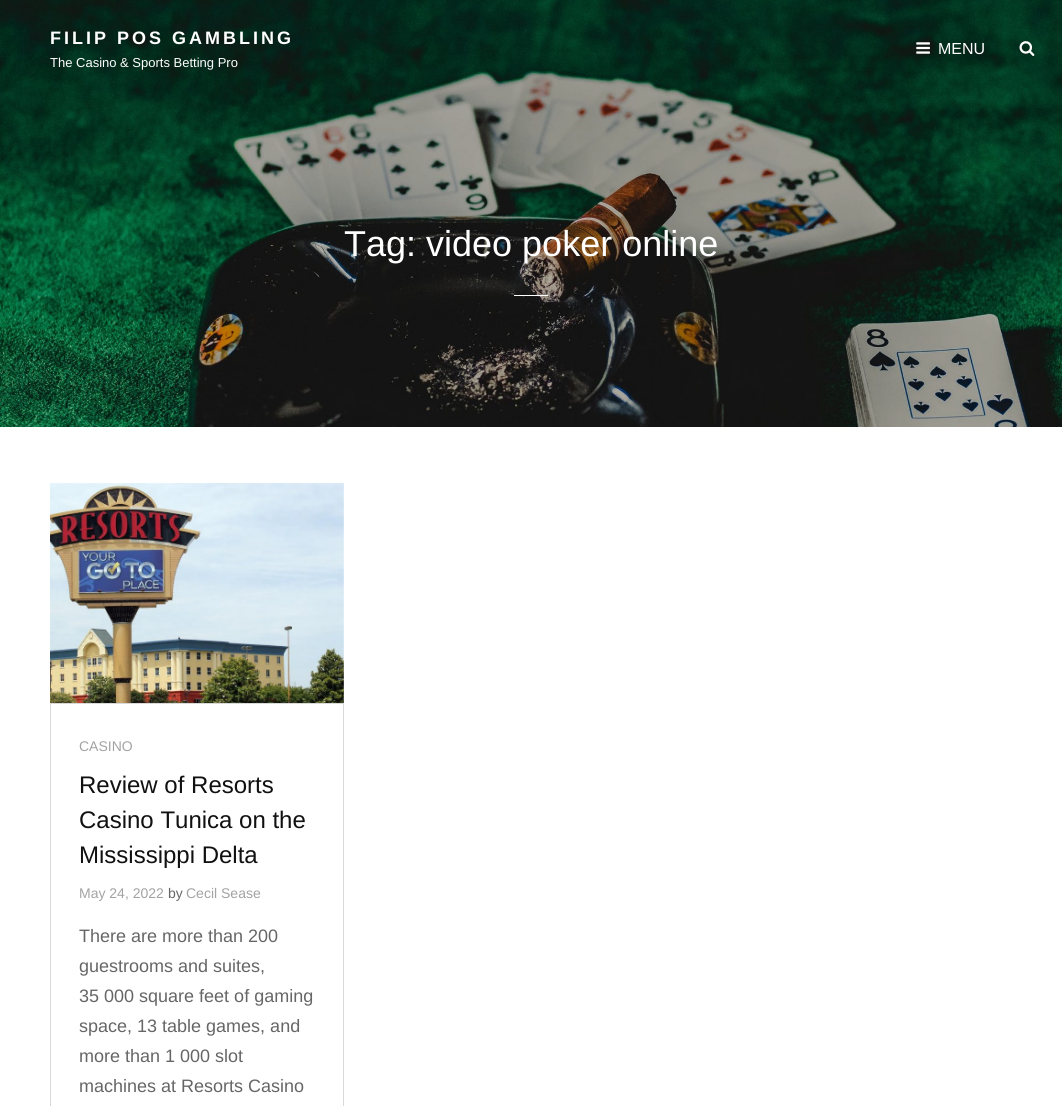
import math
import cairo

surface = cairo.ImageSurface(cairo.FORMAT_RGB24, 1062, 1106)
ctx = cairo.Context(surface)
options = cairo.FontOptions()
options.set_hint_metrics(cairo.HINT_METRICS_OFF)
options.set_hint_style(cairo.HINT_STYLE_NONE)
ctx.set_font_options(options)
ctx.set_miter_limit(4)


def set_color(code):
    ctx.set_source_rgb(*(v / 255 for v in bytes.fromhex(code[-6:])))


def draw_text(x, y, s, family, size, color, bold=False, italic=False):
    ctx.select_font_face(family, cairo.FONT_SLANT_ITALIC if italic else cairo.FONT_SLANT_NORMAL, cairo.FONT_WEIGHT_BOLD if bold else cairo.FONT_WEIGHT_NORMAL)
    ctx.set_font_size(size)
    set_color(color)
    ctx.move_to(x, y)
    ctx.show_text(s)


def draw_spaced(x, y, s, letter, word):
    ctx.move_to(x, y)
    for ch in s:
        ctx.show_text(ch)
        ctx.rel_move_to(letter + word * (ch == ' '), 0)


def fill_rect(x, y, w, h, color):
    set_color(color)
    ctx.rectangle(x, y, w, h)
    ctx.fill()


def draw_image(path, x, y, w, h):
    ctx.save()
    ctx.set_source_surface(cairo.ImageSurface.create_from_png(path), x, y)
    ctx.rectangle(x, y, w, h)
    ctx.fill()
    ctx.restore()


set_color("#ffffff")
ctx.paint()
draw_image("assets/img3.png", 0, 0, 1062, 427)
ctx.select_font_face("Liberation Sans", cairo.FONT_SLANT_NORMAL, cairo.FONT_WEIGHT_BOLD)
ctx.set_font_size(18)
set_color("#ffffff")
draw_spaced(50, 44, "FILIP POS GAMBLING", 3, 0)
draw_text(50, 67, "The Casino & Sports Betting Pro", "Liberation Sans", 13, "#ffffff")
draw_image("assets/img1.png", 916, 42, 14, 12)
draw_text(938, 54, "MENU", "Liberation Sans", 16, "#ffffff")
draw_image("assets/img2.png", 1019, 41, 16, 15)
draw_text(344, 256, "Tag: video poker online", "Liberation Sans", 36, "#ffffff")
fill_rect(514, 295, 34, 1, "#ffffff")
draw_image("assets/img4.png", 50, 483, 294, 220)
ctx.rectangle(50.5, 703.5, 293, 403)
set_color("#d9d9d9")
ctx.set_line_width(1)
ctx.stroke()
draw_text(79, 751, "CASINO", "Liberation Sans", 14, "#a3a3a3")
draw_text(79, 793, "Review of Resorts", "Liberation Sans", 24, "#111111")
draw_text(79, 828, "Casino Tunica on the", "Liberation Sans", 24, "#111111")
draw_text(79, 863, "Mississippi Delta", "Liberation Sans", 24, "#111111")
draw_text(79, 898, "May 24, 2022", "Liberation Sans", 14, "#a3a3a3")
draw_text(168, 898, "by", "Liberation Sans", 14, "#666666")
draw_text(186, 898, "Cecil Sease", "Liberation Sans", 14, "#a3a3a3")
draw_text(79, 942, "There are more than 200", "Liberation Sans", 18, "#666666")
draw_text(79, 972, "guestrooms and suites,", "Liberation Sans", 18, "#666666")
draw_text(79, 1002, "35 000 square feet of gaming", "Liberation Sans", 18, "#666666")
draw_text(79, 1032, "space, 13 table games, and", "Liberation Sans", 18, "#666666")
draw_text(79, 1062, "more than 1 000 slot", "Liberation Sans", 18, "#666666")
draw_text(79, 1092, "machines at Resorts Casino", "Liberation Sans", 18, "#666666")
surface.write_to_png("output.png")
